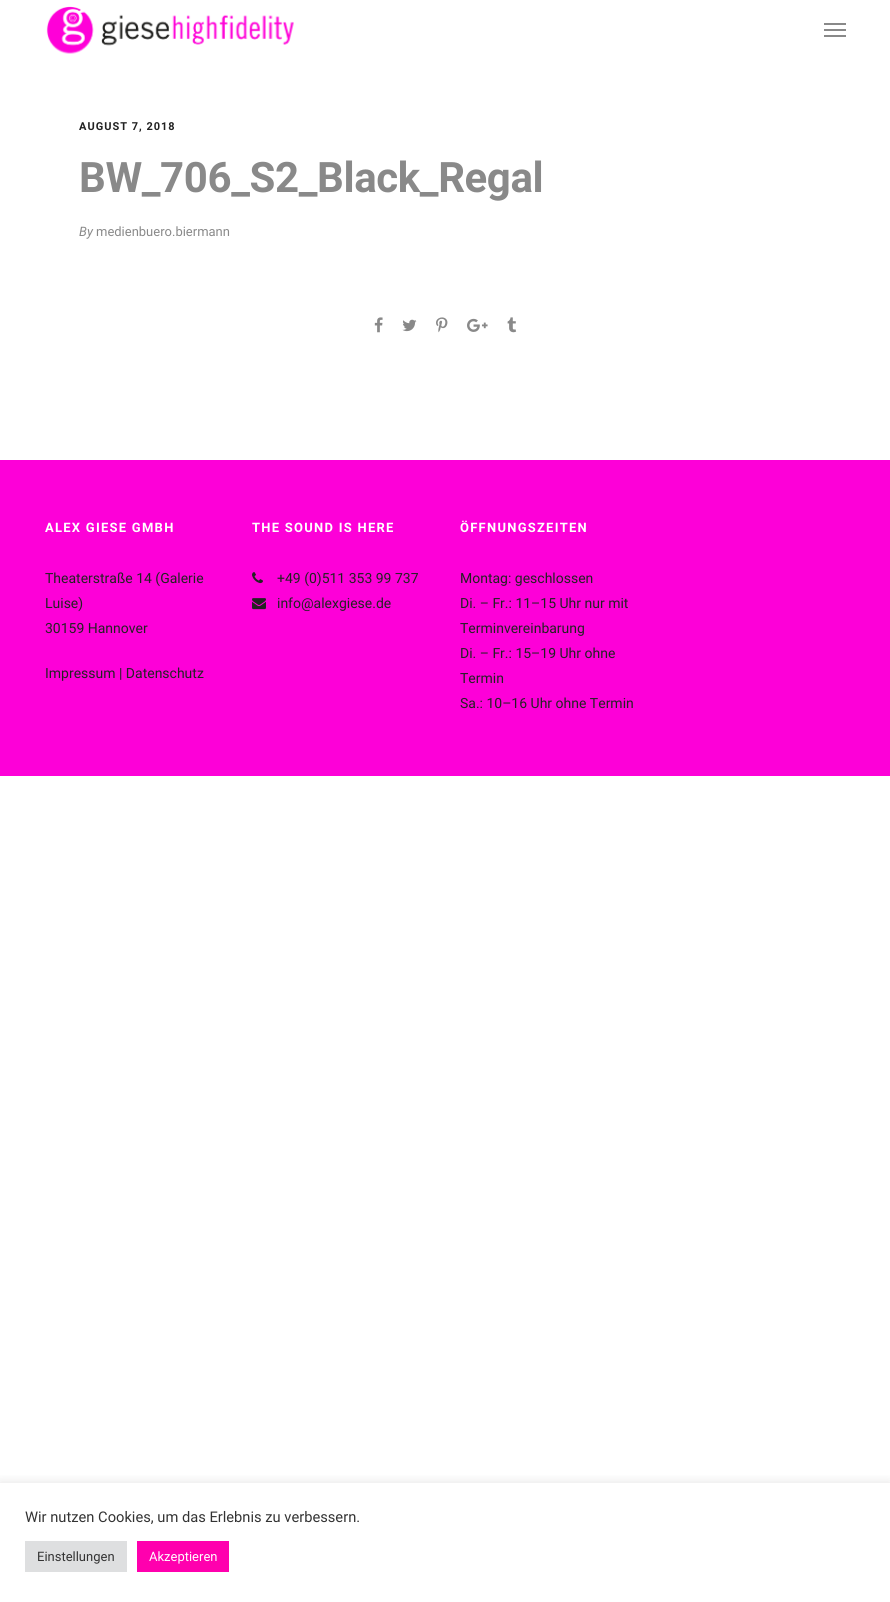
import math
import cairo

surface = cairo.ImageSurface(cairo.FORMAT_RGB24, 890, 1602)
ctx = cairo.Context(surface)
options = cairo.FontOptions()
options.set_hint_metrics(cairo.HINT_METRICS_OFF)
options.set_hint_style(cairo.HINT_STYLE_NONE)
ctx.set_font_options(options)
ctx.set_miter_limit(4)


def set_color(code):
    ctx.set_source_rgb(*(v / 255 for v in bytes.fromhex(code[-6:])))


def draw_text(x, y, s, family, size, color, bold=False, italic=False):
    ctx.select_font_face(family, cairo.FONT_SLANT_ITALIC if italic else cairo.FONT_SLANT_NORMAL, cairo.FONT_WEIGHT_BOLD if bold else cairo.FONT_WEIGHT_NORMAL)
    ctx.set_font_size(size)
    set_color(color)
    ctx.move_to(x, y)
    ctx.show_text(s)


def draw_spaced(x, y, s, letter, word):
    ctx.move_to(x, y)
    for ch in s:
        ctx.show_text(ch)
        ctx.rel_move_to(letter + word * (ch == ' '), 0)


def fill_rect(x, y, w, h, color):
    set_color(color)
    ctx.rectangle(x, y, w, h)
    ctx.fill()


def rounded_rect(x, y, w, h, r):
    ctx.new_sub_path()
    for i, (u, v) in enumerate([(x + w - r, y + h - r), (x + r, y + h - r), (x + r, y + r), (x + w - r, y + r)]):
        ctx.arc(u, v, r, i * math.pi / 2, (i + 1) * math.pi / 2)
    ctx.close_path()


def draw_shadow(x, y, w, h, r, blur, alpha):
    ctx.push_group_with_content(cairo.CONTENT_ALPHA)
    ctx.set_operator(cairo.OPERATOR_SOURCE)
    for i in range(15, -16, -2):
        e = blur * i / 6
        if min(w, h) + 2 * e > 0:
            ctx.set_source_rgba(0, 0, 0, alpha * math.erfc((i - 1) / 8.5) / 2)
            rounded_rect(x - e, y - e, w + 2 * e, h + 2 * e, max(0, min(r + e + blur * .6, min(w, h) / 2 + e)))
            ctx.fill()
    ctx.mask(ctx.pop_group())


def draw_image(path, x, y, w, h):
    ctx.save()
    ctx.set_source_surface(cairo.ImageSurface.create_from_png(path), x, y)
    ctx.rectangle(x, y, w, h)
    ctx.fill()
    ctx.restore()


set_color("#ffffff")
ctx.paint()
draw_image("assets/img1.png", 46, 6, 248, 48)
fill_rect(824, 29, 22, 2, "#898989")
fill_rect(824, 23, 22, 2, "#898989")
fill_rect(824, 35, 22, 2, "#898989")
ctx.select_font_face("Roboto", cairo.FONT_SLANT_NORMAL, cairo.FONT_WEIGHT_BOLD)
ctx.set_font_size(11)
set_color("#222222")
draw_spaced(79, 130, "AUGUST 7, 2018", 1, 0)
ctx.set_font_size(42)
set_color("#898989")
draw_spaced(79, 192, "BW_706_S2_Black_Regal", -0.4, 0)
draw_text(79, 236, "By", "Roboto", 13, "#898989", italic=True)
draw_text(96, 236, "medienbuero.biermann", "Roboto", 13, "#898989")
draw_image("assets/img2.png", 374, 317, 9, 16)
draw_image("assets/img3.png", 402, 319, 15, 13)
draw_image("assets/img4.png", 436, 317, 12, 16)
draw_image("assets/img5.png", 467, 318, 21, 14)
draw_image("assets/img6.png", 507, 317, 10, 16)
fill_rect(0, 460, 890, 316, "#fd00d8")
ctx.select_font_face("Roboto", cairo.FONT_SLANT_NORMAL, cairo.FONT_WEIGHT_BOLD)
set_color("#ffffff")
draw_spaced(45, 532, "ALEX GIESE GMBH", 1.25, 0)
draw_text(45, 583, "Theaterstraße 14 (Galerie", "Roboto", 14, "#222222")
draw_text(45, 608, "Luise)", "Roboto", 14, "#222222")
draw_text(45, 633, "30159 Hannover", "Roboto", 14, "#222222")
draw_text(45, 678, "Impressum | Datenschutz", "Roboto", 14, "#222222")
ctx.select_font_face("Roboto", cairo.FONT_SLANT_NORMAL, cairo.FONT_WEIGHT_BOLD)
ctx.set_font_size(13)
set_color("#ffffff")
draw_spaced(252, 532, "THE SOUND IS HERE", 1.25, 0)
draw_image("assets/img7.png", 252, 572, 11, 12)
draw_text(277, 583, "+49 (0)511 353 99 737", "Roboto", 14, "#222222")
draw_image("assets/img8.png", 252, 598, 14, 12)
draw_text(277, 608, "info@alexgiese.de", "Roboto", 14, "#222222")
ctx.select_font_face("Roboto", cairo.FONT_SLANT_NORMAL, cairo.FONT_WEIGHT_BOLD)
ctx.set_font_size(13)
set_color("#ffffff")
draw_spaced(460, 532, "ÖFFNUNGSZEITEN", 1.25, 0)
draw_text(460, 583, "Montag: geschlossen", "Roboto", 14, "#222222")
draw_text(460, 608, "Di. – Fr.: 11–15 Uhr nur mit", "Roboto", 14, "#222222")
draw_text(460, 633, "Terminvereinbarung", "Roboto", 14, "#222222")
draw_text(460, 658, "Di. – Fr.: 15–19 Uhr ohne", "Roboto", 14, "#222222")
draw_text(460, 683, "Termin", "Roboto", 14, "#222222")
draw_text(460, 708, "Sa.: 10–16 Uhr ohne Termin", "Roboto", 14, "#222222")
ctx.save()
ctx.rectangle(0, 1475, 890, 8)
ctx.clip()
set_color("#acabab")
draw_shadow(0, 1482, 890, 119, 0, 5, 0.3)
ctx.restore()
draw_text(25, 1522, "Wir nutzen Cookies, um das Erlebnis zu verbessern.", "Roboto", 14.7, "#333333")
fill_rect(25, 1541, 102, 31, "#dedfe0")
draw_text(37, 1561, "Einstellungen", "Roboto", 13, "#333333")
fill_rect(137, 1541, 92, 31, "#ff00ae")
draw_text(149, 1561, "Akzeptieren", "Roboto", 13, "#ffffff")
surface.write_to_png("output.png")
